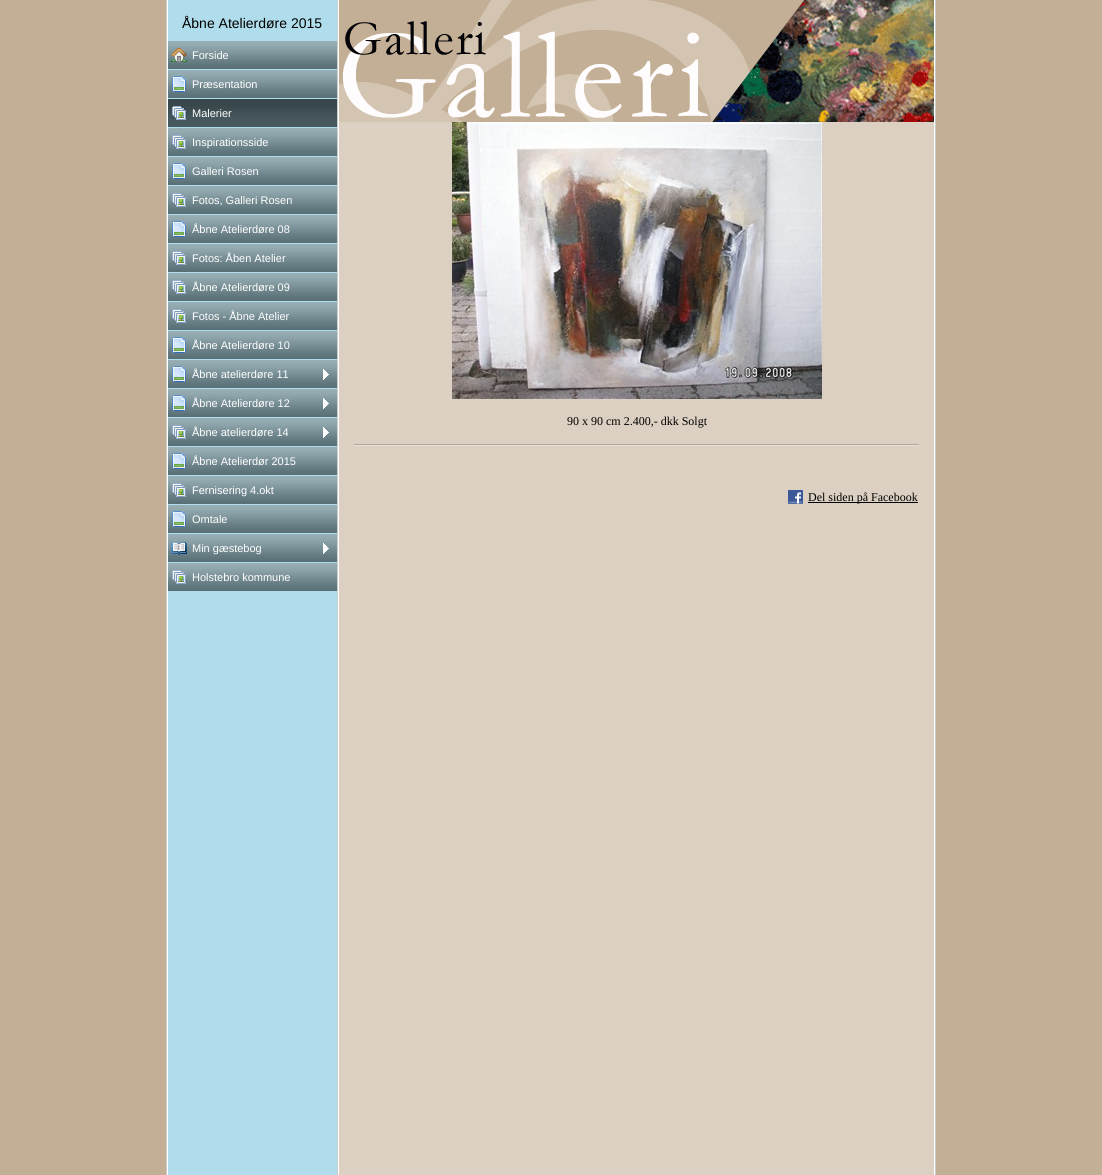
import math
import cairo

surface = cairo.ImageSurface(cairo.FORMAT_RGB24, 1102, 1175)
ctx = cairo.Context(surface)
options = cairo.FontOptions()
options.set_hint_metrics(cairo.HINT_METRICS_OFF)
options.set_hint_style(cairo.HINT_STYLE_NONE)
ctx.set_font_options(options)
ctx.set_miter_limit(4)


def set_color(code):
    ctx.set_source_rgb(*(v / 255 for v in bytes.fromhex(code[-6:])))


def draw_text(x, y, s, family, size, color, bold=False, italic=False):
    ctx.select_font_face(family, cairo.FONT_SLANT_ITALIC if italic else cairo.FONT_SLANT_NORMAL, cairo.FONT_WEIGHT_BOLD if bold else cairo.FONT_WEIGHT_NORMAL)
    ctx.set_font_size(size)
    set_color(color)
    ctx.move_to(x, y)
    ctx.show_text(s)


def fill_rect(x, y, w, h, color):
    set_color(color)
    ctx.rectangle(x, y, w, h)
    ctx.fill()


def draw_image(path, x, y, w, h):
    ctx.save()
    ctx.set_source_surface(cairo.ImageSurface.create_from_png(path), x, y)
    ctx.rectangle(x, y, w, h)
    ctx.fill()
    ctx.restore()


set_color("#c3af96")
ctx.paint()
fill_rect(167, 0, 768, 1175, "#ffffff")
fill_rect(166, 0, 1, 1175, "#cccccc")
fill_rect(168, 0, 169, 1175, "#b0ddeb")
draw_text(182, 28, "Åbne Atelierdøre 2015", "Liberation Sans", 14, "#000000")
draw_image("assets/img1.png", 168, 41, 169, 28)
draw_image("assets/img2.png", 171, 48, 16, 14)
draw_text(192, 59, "Forside", "Liberation Sans", 11, "#ffffff")
draw_image("assets/img1.png", 168, 70, 169, 28)
draw_image("assets/img3.png", 172, 76, 14, 16)
draw_text(192, 88, "Præsentation", "Liberation Sans", 11, "#ffffff")
draw_image("assets/img4.png", 168, 99, 169, 28)
draw_image("assets/img5.png", 172, 106, 14, 14)
draw_text(192, 117, "Malerier", "Liberation Sans", 11, "#ffffff")
draw_image("assets/img1.png", 168, 128, 169, 28)
draw_image("assets/img6.png", 172, 135, 14, 14)
draw_text(192, 146, "Inspirationsside", "Liberation Sans", 11, "#ffffff")
draw_image("assets/img1.png", 168, 157, 169, 28)
draw_image("assets/img3.png", 172, 163, 14, 16)
draw_text(192, 175, "Galleri Rosen", "Liberation Sans", 11, "#ffffff")
draw_image("assets/img1.png", 168, 186, 169, 28)
draw_image("assets/img6.png", 172, 193, 14, 14)
draw_text(192, 204, "Fotos, Galleri Rosen", "Liberation Sans", 11, "#ffffff")
draw_image("assets/img1.png", 168, 215, 169, 28)
draw_image("assets/img3.png", 172, 221, 14, 16)
draw_text(192, 233, "Åbne Atelierdøre 08", "Liberation Sans", 11, "#ffffff")
draw_image("assets/img1.png", 168, 244, 169, 28)
draw_image("assets/img6.png", 172, 251, 14, 14)
draw_text(192, 262, "Fotos: Åben Atelier", "Liberation Sans", 11, "#ffffff")
draw_image("assets/img1.png", 168, 273, 169, 28)
draw_image("assets/img6.png", 172, 280, 14, 14)
draw_text(192, 291, "Åbne Atelierdøre 09", "Liberation Sans", 11, "#ffffff")
draw_image("assets/img1.png", 168, 302, 169, 28)
draw_image("assets/img6.png", 172, 309, 14, 14)
draw_text(192, 320, "Fotos - Åbne Atelier", "Liberation Sans", 11, "#ffffff")
draw_image("assets/img1.png", 168, 331, 169, 28)
draw_image("assets/img3.png", 172, 337, 14, 16)
draw_text(192, 349, "Åbne Atelierdøre 10", "Liberation Sans", 11, "#ffffff")
draw_image("assets/img1.png", 168, 360, 169, 28)
draw_image("assets/img3.png", 172, 366, 14, 16)
draw_image("assets/img7.png", 323, 369, 6, 11)
draw_text(192, 378, "Åbne atelierdøre 11", "Liberation Sans", 11, "#ffffff")
draw_image("assets/img1.png", 168, 389, 169, 28)
draw_image("assets/img3.png", 172, 395, 14, 16)
draw_image("assets/img7.png", 323, 398, 6, 11)
draw_text(192, 407, "Åbne Atelierdøre 12", "Liberation Sans", 11, "#ffffff")
draw_image("assets/img1.png", 168, 418, 169, 28)
draw_image("assets/img6.png", 172, 425, 14, 14)
draw_image("assets/img7.png", 323, 427, 6, 11)
draw_text(192, 436, "Åbne atelierdøre 14", "Liberation Sans", 11, "#ffffff")
draw_image("assets/img1.png", 168, 447, 169, 28)
draw_image("assets/img3.png", 172, 453, 14, 16)
draw_text(192, 465, "Åbne Atelierdør 2015", "Liberation Sans", 11, "#ffffff")
draw_image("assets/img1.png", 168, 476, 169, 28)
draw_image("assets/img6.png", 172, 483, 14, 14)
draw_text(192, 494, "Fernisering 4.okt", "Liberation Sans", 11, "#ffffff")
draw_image("assets/img1.png", 168, 505, 169, 28)
draw_image("assets/img3.png", 172, 511, 14, 16)
draw_text(192, 523, "Omtale", "Liberation Sans", 11, "#ffffff")
draw_image("assets/img1.png", 168, 534, 169, 28)
draw_image("assets/img8.png", 171, 542, 16, 13)
draw_image("assets/img7.png", 323, 543, 6, 11)
draw_text(192, 552, "Min gæstebog", "Liberation Sans", 11, "#ffffff")
draw_image("assets/img1.png", 168, 563, 169, 28)
draw_image("assets/img6.png", 172, 570, 14, 14)
draw_text(192, 581, "Holstebro kommune", "Liberation Sans", 11, "#ffffff")
fill_rect(337, 0, 1, 1175, "#cccccc")
fill_rect(339, 122, 595, 1053, "#dbd0c1")
draw_image("assets/img9.png", 339, 0, 595, 122)
draw_image("assets/img10.png", 452, 122, 370, 277)
draw_text(567, 425, "90 x 90 cm 2.400,- dkk Solgt", "Liberation Serif", 12, "#000000")
draw_image("assets/img11.png", 354, 444, 565, 2)
draw_image("assets/img12.png", 788, 490, 15, 14)
fill_rect(808, 502, 110, 1, "#000000")
draw_text(808, 501, "Del siden på Facebook", "Liberation Serif", 12, "#000000")
fill_rect(935, 0, 1, 1175, "#cccccc")
surface.write_to_png("output.png")
